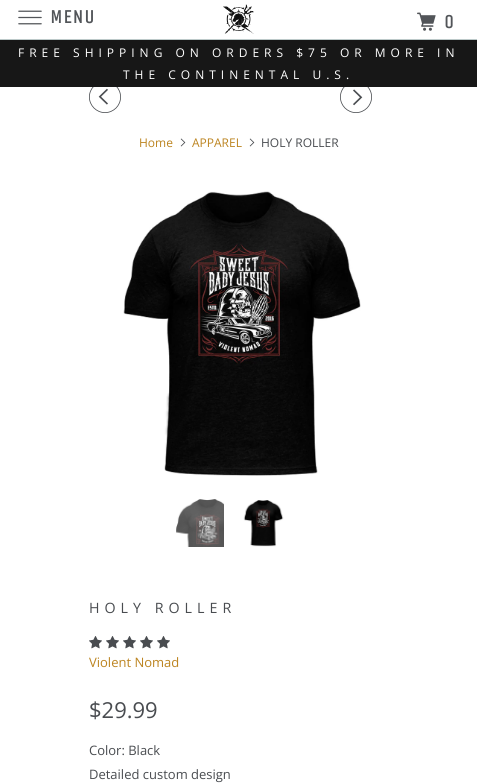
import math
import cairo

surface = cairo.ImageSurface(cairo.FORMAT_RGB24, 477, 784)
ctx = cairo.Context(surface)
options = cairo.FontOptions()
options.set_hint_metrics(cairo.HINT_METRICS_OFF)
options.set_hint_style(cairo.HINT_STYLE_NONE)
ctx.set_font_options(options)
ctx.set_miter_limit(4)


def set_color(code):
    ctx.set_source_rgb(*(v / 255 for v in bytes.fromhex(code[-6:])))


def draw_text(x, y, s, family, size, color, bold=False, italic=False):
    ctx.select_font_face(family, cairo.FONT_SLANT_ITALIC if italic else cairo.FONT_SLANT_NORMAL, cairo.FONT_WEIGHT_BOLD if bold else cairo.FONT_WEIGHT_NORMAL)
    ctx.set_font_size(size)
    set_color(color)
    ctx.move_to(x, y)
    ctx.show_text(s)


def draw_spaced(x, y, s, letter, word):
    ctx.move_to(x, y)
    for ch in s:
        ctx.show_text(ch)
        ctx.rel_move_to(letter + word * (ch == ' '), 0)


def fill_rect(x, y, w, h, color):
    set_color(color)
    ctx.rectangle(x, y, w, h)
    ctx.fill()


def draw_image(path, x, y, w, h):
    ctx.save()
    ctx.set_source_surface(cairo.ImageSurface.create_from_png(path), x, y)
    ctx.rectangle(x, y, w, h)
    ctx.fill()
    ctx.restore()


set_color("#ffffff")
ctx.paint()
fill_rect(0, 39, 477, 1, "#bcc9c9")
draw_image("assets/img1.png", 18, 10, 24, 15)
ctx.select_font_face("Unica One", cairo.FONT_SLANT_NORMAL, cairo.FONT_WEIGHT_BOLD)
ctx.set_font_size(19)
set_color("#525559")
draw_spaced(50, 23, "MENU", 1, 0)
draw_image("assets/img2.png", 223, 4, 31, 30)
draw_image("assets/img3.png", 417, 12, 19, 19)
draw_spaced(444, 28, "0", 1, 0)
fill_rect(0, 40, 477, 47, "#171717")
ctx.select_font_face("Open Sans")
ctx.set_font_size(12)
set_color("#ffffff")
draw_spaced(18, 57, "FREE SHIPPING ON ORDERS $75 OR MORE IN", 5, 0)
draw_spaced(123, 79, "THE CONTINENTAL U.S.", 5, 0)
draw_image("assets/img4.png", 89, 87, 32, 26)
draw_image("assets/img5.png", 340, 87, 32, 26)
draw_text(139, 147, "Home", "Open Sans", 12, "#bc8420")
draw_image("assets/img6.png", 180, 138, 6, 9)
draw_text(192, 147, "APPAREL", "Open Sans", 12, "#bc8420")
draw_image("assets/img6.png", 249, 138, 6, 9)
draw_text(261, 147, "HOLY ROLLER", "Open Sans", 12, "#494c50")
draw_image("assets/img7.png", 123, 191, 238, 285)
draw_image("assets/img8.png", 176, 499, 48, 48)
draw_image("assets/img9.png", 243, 500, 41, 47)
ctx.set_font_size(14.25)
draw_spaced(89, 613, "HOLY ROLLER", 5, 0)
draw_image("assets/img10.png", 89, 636, 13, 13)
draw_image("assets/img10.png", 106, 636, 13, 13)
draw_image("assets/img10.png", 123, 636, 13, 13)
draw_image("assets/img10.png", 140, 636, 13, 13)
draw_image("assets/img10.png", 157, 636, 13, 13)
draw_text(89, 667, "Violent Nomad", "Open Sans", 13, "#bc8420")
draw_text(89, 718, "$29.99", "Open Sans", 22, "#494c50")
draw_text(89, 755, "Color: Black", "Open Sans", 13, "#494c50")
draw_text(89, 779, "Detailed custom design", "Open Sans", 13, "#494c50")
surface.write_to_png("output.png")
